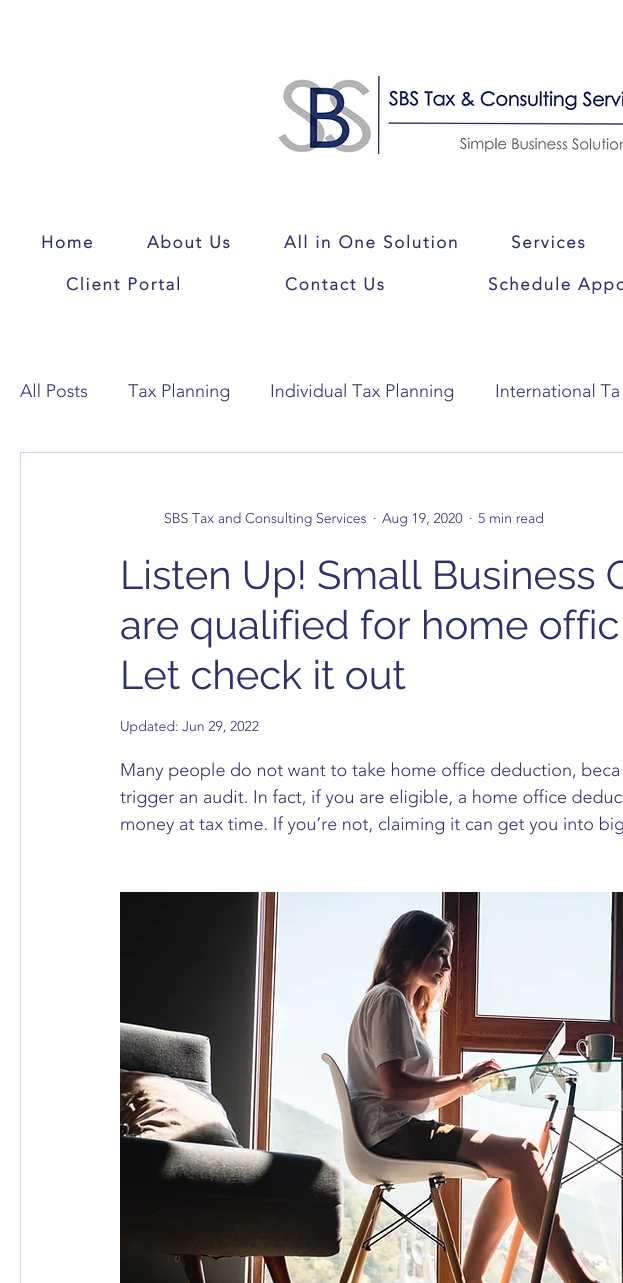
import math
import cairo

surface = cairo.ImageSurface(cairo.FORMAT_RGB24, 623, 1283)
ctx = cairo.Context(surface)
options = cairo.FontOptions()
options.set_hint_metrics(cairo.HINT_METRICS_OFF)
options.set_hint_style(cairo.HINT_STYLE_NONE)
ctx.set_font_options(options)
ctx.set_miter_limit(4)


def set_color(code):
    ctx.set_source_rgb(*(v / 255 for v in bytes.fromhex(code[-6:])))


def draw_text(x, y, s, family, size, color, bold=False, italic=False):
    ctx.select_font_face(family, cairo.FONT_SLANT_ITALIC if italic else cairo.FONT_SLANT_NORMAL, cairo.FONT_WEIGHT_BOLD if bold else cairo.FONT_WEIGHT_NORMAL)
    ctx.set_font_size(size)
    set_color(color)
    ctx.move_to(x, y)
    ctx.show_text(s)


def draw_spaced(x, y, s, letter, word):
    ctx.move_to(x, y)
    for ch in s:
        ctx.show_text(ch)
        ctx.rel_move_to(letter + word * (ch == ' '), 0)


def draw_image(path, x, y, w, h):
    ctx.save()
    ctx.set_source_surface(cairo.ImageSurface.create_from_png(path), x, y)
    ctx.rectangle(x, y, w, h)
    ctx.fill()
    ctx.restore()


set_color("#ffffff")
ctx.paint()
draw_image("assets/img1.png", 277, 76, 346, 78)
ctx.select_font_face("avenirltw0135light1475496", cairo.FONT_SLANT_NORMAL, cairo.FONT_WEIGHT_BOLD)
ctx.set_font_size(17)
set_color("#2e306b")
draw_spaced(41, 248, "Home", 1.75, 0)
draw_spaced(147, 248, "About Us", 1.75, 0)
draw_spaced(284, 248, "All in One Solution", 1.75, 0)
draw_spaced(511, 248, "Services", 1.75, 0)
draw_spaced(66, 290, "Client Portal", 1.75, 0)
draw_spaced(285, 290, "Contact Us", 1.75, 0)
draw_spaced(488, 290, "Schedule Appo", 1.75, 0)
draw_text(20, 397, "All Posts", "avenirltw0135light1475496 Light", 18, "#2e306b")
draw_text(128, 397, "Tax Planning", "avenirltw0135light1475496 Light", 18, "#2e306b")
draw_text(270, 397, "Individual Tax Planning", "avenirltw0135light1475496 Light", 18, "#2e306b")
draw_text(495, 397, "International Ta", "avenirltw0135light1475496 Light", 18, "#2e306b")
ctx.rectangle(20.5, 452.5, 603, 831)
set_color("#d1d1eb")
ctx.set_line_width(1)
ctx.stroke()
draw_text(164, 523, "SBS Tax and Consulting Services", "avenirltw0135light1475496 Light", 14, "#2e306b")
draw_text(373, 523, "·", "avenirltw0135light1475496 Light", 14, "#2e306b")
draw_text(382, 523, "Aug 19, 2020", "avenirltw0135light1475496 Light", 14, "#2e306b")
draw_text(469, 523, "·", "avenirltw0135light1475496 Light", 14, "#2e306b")
draw_text(478, 523, "5 min read", "avenirltw0135light1475496 Light", 14, "#2e306b")
draw_text(120, 589, "Listen Up! Small Business O", "Raleway", 40, "#2e306b")
draw_text(120, 639, "are qualified for home offic", "Raleway", 40, "#2e306b")
draw_text(120, 689, "Let check it out", "Raleway", 40, "#2e306b")
draw_text(120, 731, "Updated: Jun 29, 2022", "avenirltw0135light1475496 Light", 14, "#2e306b")
draw_text(120, 776, "Many people do not want to take home office deduction, beca", "avenirltw0135light1475496 Light", 18, "#2e306b")
draw_text(120, 803, "trigger an audit. In fact, if you are eligible, a home office deduc", "avenirltw0135light1475496 Light", 18, "#2e306b")
draw_text(120, 830, "money at tax time. If you’re not, claiming it can get you into big", "avenirltw0135light1475496 Light", 18, "#2e306b")
draw_image("assets/img2.png", 120, 892, 503, 391)
surface.write_to_png("output.png")
